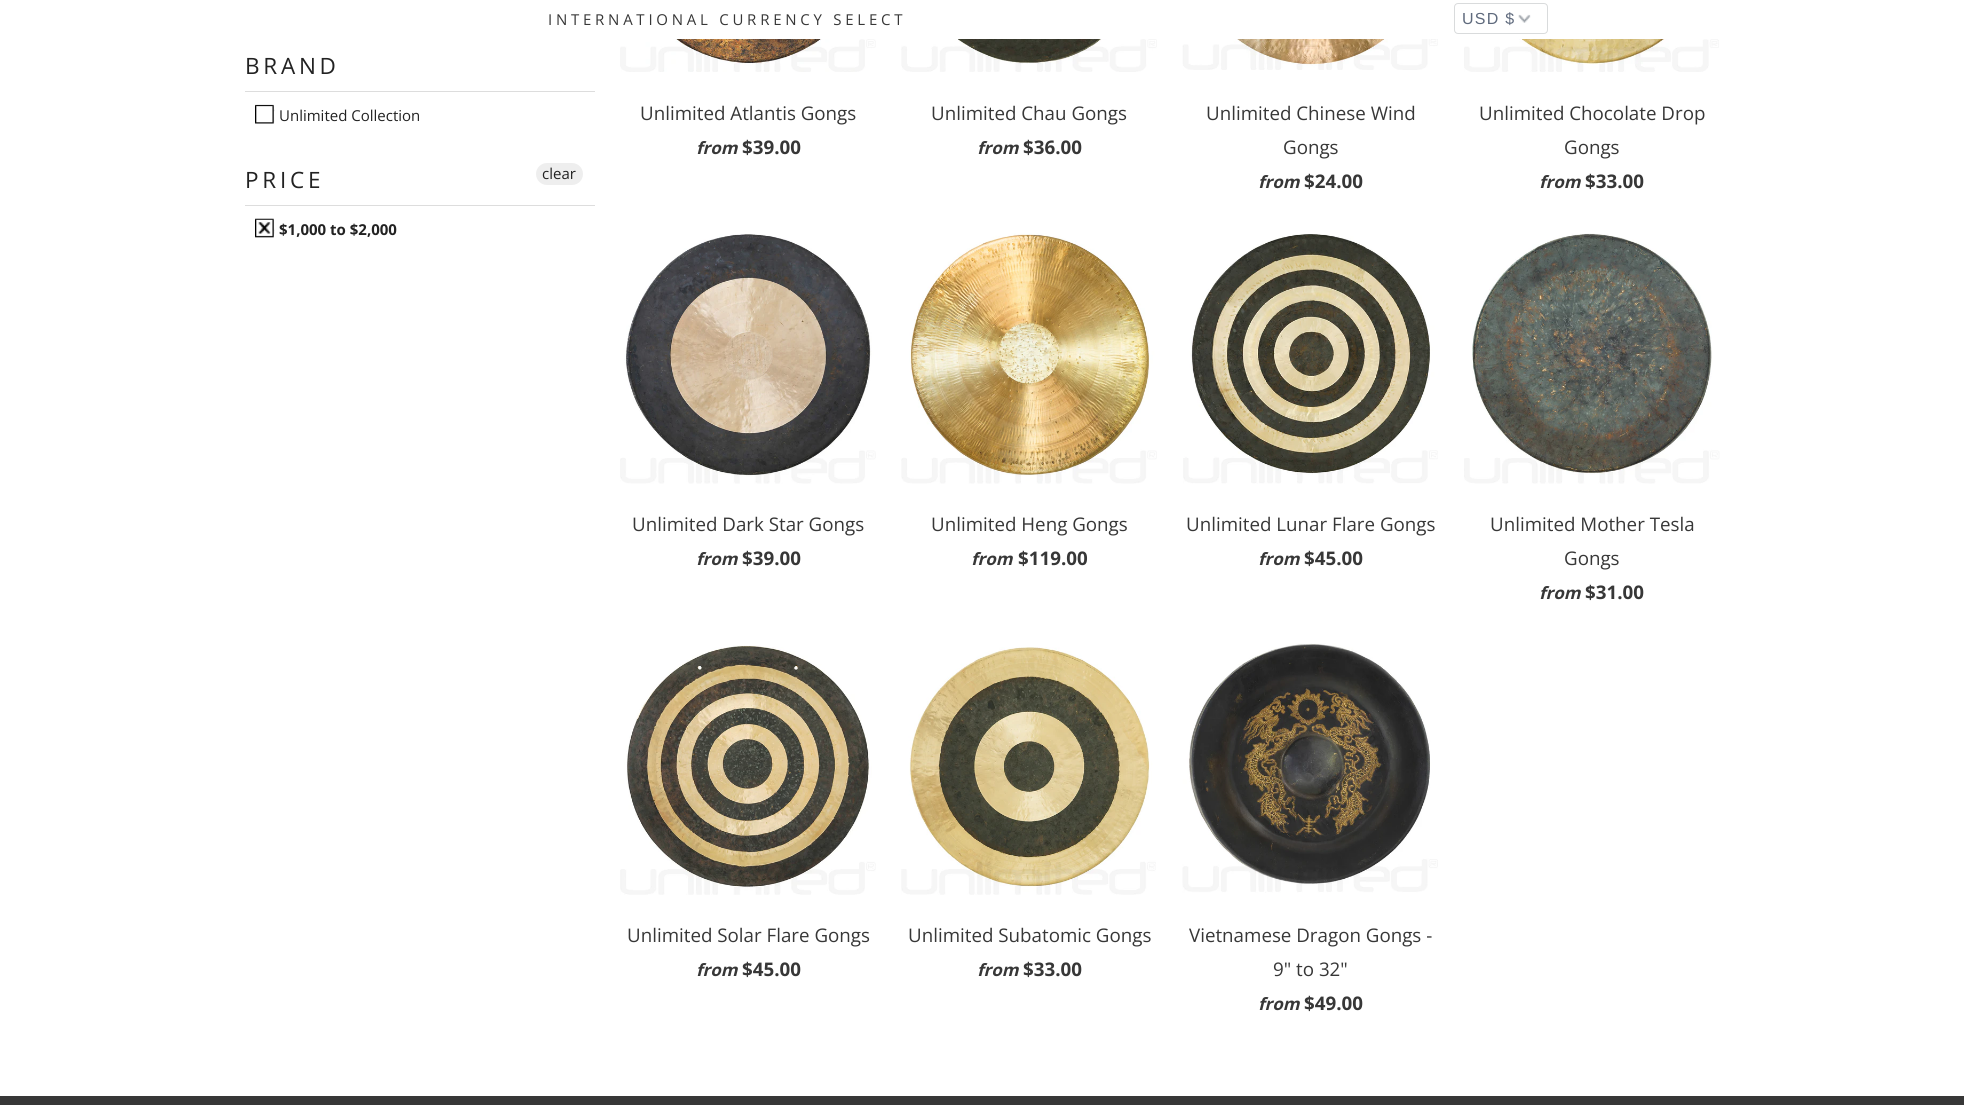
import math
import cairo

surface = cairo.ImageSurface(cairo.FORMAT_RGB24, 1964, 1105)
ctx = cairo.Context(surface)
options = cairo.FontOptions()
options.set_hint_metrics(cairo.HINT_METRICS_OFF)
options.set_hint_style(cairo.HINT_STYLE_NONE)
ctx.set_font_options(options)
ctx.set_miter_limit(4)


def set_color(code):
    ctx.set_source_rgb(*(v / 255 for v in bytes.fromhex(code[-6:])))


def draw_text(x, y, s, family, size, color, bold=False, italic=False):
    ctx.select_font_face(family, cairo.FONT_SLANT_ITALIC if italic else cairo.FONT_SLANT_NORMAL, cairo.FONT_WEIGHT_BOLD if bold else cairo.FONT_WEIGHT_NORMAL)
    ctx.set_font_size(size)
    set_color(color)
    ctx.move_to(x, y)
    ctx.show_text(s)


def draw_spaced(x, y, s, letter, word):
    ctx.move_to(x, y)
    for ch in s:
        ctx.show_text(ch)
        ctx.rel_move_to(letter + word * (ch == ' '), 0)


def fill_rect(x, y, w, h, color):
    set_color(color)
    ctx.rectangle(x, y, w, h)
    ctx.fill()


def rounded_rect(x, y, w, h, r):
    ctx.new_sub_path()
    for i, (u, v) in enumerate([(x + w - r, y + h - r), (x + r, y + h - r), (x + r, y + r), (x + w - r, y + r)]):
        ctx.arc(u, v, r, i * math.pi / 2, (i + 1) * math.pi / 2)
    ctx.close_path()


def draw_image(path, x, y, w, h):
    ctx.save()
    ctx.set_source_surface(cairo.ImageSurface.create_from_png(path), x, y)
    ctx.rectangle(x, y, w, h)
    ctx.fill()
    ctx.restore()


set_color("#ffffff")
ctx.paint()
ctx.select_font_face("Open Sans")
ctx.set_font_size(15)
set_color("#373737")
draw_spaced(548, 25, "INTERNATIONAL CURRENCY SELECT", 3.75, 0)
draw_image("assets/img1.png", 1518, 14, 13, 9)
rounded_rect(1454.5, 3.5, 93, 30, 3.5)
set_color("#d9dbdc")
ctx.set_line_width(1)
ctx.stroke()
ctx.select_font_face("Liberation Sans")
ctx.set_font_size(16)
set_color("#5f6a7d")
draw_spaced(1462, 24, "USD $", 1.25, 0)
fill_rect(245, 91, 350, 1, "#dddddd")
ctx.select_font_face("Open Sans")
ctx.set_font_size(22.5)
set_color("#222222")
draw_spaced(245, 74, "BRAND", 3.75, 0)
draw_image("assets/img2.png", 255, 104, 20, 20)
draw_text(279, 121, "Unlimited Collection", "Open Sans", 15, "#222222")
fill_rect(245, 205, 350, 1, "#dddddd")
ctx.set_font_size(22.5)
set_color("#222222")
draw_spaced(245, 188, "PRICE", 3.75, 0)
set_color("#eeeeee")
rounded_rect(536, 163, 47, 22, 11)
ctx.fill()
draw_text(542, 179, "clear", "Open Sans", 15, "#222222")
draw_image("assets/img3.png", 255, 218, 20, 20)
draw_text(279, 235, "$1,000 to $2,000", "Open Sans", 15, "#222222", bold=True)
draw_image("assets/img4.png", 620, 39, 256, 33)
draw_text(640, 120, "Unlimited Atlantis Gongs", "Open Sans", 18.75, "#373737")
draw_text(696, 154, "from", "Open Sans", 17, "#373737", bold=True, italic=True)
draw_text(742, 154, "$39.00", "Open Sans", 18.75, "#373737", bold=True)
draw_image("assets/img5.png", 901, 39, 256, 33)
draw_text(931, 120, "Unlimited Chau Gongs", "Open Sans", 18.75, "#373737")
draw_text(977, 154, "from", "Open Sans", 17, "#373737", bold=True, italic=True)
draw_text(1023, 154, "$36.00", "Open Sans", 18.75, "#373737", bold=True)
draw_image("assets/img6.png", 1182, 39, 256, 31)
draw_text(1206, 120, "Unlimited Chinese Wind", "Open Sans", 18.75, "#373737")
draw_text(1283, 154, "Gongs", "Open Sans", 18.75, "#373737")
draw_text(1258, 188, "from", "Open Sans", 17, "#373737", bold=True, italic=True)
draw_text(1304, 188, "$24.00", "Open Sans", 18.75, "#373737", bold=True)
draw_image("assets/img7.png", 1464, 39, 255, 33)
draw_text(1479, 120, "Unlimited Chocolate Drop", "Open Sans", 18.75, "#373737")
draw_text(1564, 154, "Gongs", "Open Sans", 18.75, "#373737")
draw_text(1539, 188, "from", "Open Sans", 17, "#373737", bold=True, italic=True)
draw_text(1585, 188, "$33.00", "Open Sans", 18.75, "#373737", bold=True)
draw_image("assets/img8.png", 620, 234, 256, 250)
draw_text(632, 531, "Unlimited Dark Star Gongs", "Open Sans", 18.75, "#373737")
draw_text(696, 565, "from", "Open Sans", 17, "#373737", bold=True, italic=True)
draw_text(742, 565, "$39.00", "Open Sans", 18.75, "#373737", bold=True)
draw_image("assets/img9.png", 901, 233, 256, 251)
draw_text(931, 531, "Unlimited Heng Gongs", "Open Sans", 18.75, "#373737")
draw_text(971, 565, "from", "Open Sans", 17, "#373737", bold=True, italic=True)
draw_text(1018, 565, "$119.00", "Open Sans", 18.75, "#373737", bold=True)
draw_image("assets/img10.png", 1183, 234, 255, 250)
draw_text(1186, 531, "Unlimited Lunar Flare Gongs", "Open Sans", 18.75, "#373737")
draw_text(1258, 565, "from", "Open Sans", 17, "#373737", bold=True, italic=True)
draw_text(1304, 565, "$45.00", "Open Sans", 18.75, "#373737", bold=True)
draw_image("assets/img11.png", 1464, 233, 256, 251)
draw_text(1490, 531, "Unlimited Mother Tesla", "Open Sans", 18.75, "#373737")
draw_text(1564, 565, "Gongs", "Open Sans", 18.75, "#373737")
draw_text(1539, 599, "from", "Open Sans", 17, "#373737", bold=True, italic=True)
draw_text(1585, 599, "$31.00", "Open Sans", 18.75, "#373737", bold=True)
draw_image("assets/img12.png", 620, 645, 256, 250)
draw_text(627, 942, "Unlimited Solar Flare Gongs", "Open Sans", 18.75, "#373737")
draw_text(696, 976, "from", "Open Sans", 17, "#373737", bold=True, italic=True)
draw_text(742, 976, "$45.00", "Open Sans", 18.75, "#373737", bold=True)
draw_image("assets/img13.png", 901, 647, 255, 248)
draw_text(908, 942, "Unlimited Subatomic Gongs", "Open Sans", 18.75, "#373737")
draw_text(977, 976, "from", "Open Sans", 17, "#373737", bold=True, italic=True)
draw_text(1023, 976, "$33.00", "Open Sans", 18.75, "#373737", bold=True)
draw_image("assets/img14.png", 1182, 643, 256, 250)
draw_text(1189, 942, "Vietnamese Dragon Gongs -", "Open Sans", 18.75, "#373737")
draw_text(1273, 976, "9\" to 32\"", "Open Sans", 18.75, "#373737")
draw_text(1258, 1010, "from", "Open Sans", 17, "#373737", bold=True, italic=True)
draw_text(1304, 1010, "$49.00", "Open Sans", 18.75, "#373737", bold=True)
fill_rect(0, 1096, 1964, 9, "#373737")
surface.write_to_png("output.png")
